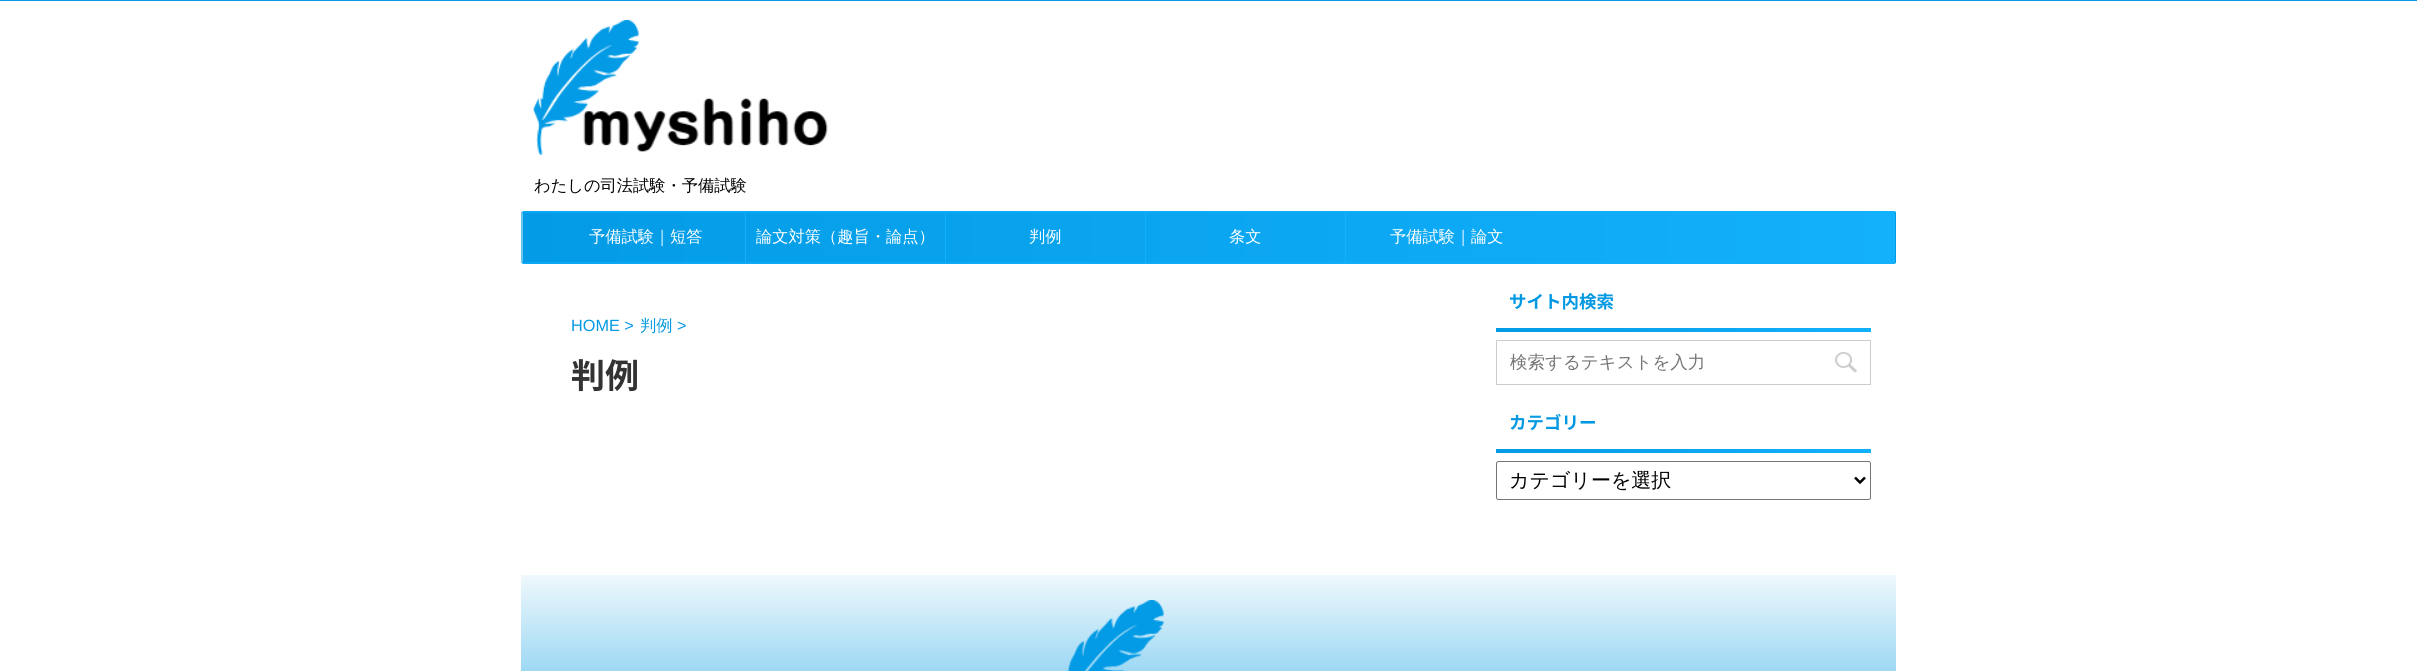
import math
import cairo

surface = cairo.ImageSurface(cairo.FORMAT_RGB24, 2417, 671)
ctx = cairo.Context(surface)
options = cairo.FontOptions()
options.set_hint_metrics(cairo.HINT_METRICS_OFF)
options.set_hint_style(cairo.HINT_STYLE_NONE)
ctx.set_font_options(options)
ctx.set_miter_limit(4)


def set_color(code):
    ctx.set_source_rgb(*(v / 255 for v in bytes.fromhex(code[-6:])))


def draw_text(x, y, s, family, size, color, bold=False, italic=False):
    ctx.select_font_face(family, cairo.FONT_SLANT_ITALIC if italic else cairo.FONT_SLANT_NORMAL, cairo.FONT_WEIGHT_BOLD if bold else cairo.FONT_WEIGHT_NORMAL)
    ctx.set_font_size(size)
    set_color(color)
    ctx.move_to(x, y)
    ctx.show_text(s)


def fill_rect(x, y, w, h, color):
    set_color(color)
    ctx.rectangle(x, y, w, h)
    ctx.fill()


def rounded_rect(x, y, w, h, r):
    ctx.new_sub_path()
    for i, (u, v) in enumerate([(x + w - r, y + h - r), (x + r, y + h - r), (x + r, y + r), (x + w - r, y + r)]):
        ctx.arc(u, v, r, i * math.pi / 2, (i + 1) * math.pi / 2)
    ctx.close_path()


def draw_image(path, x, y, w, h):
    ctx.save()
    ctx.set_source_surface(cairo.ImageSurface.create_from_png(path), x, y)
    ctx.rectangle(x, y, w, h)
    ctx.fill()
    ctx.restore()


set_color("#ffffff")
ctx.paint()
fill_rect(0, 0, 2417, 1, "#039be5")
draw_image("assets/img1.png", 533, 20, 295, 136)
draw_text(534, 191, "わたしの司法試験・予備試験", "WenQuanYi Zen Hei Medium", 16.25, "#000000")
gradient = cairo.LinearGradient(1895, 238, 523, 237)
gradient.add_color_stop_rgba(0, 0.075, 0.69, 0.988, 1)
gradient.add_color_stop_rgba(1, 0.012, 0.608, 0.898, 1)
ctx.set_source(gradient)
ctx.rectangle(523, 211, 1372, 53)
ctx.fill()
ctx.new_path()
ctx.move_to(522, 212)
ctx.line_to(1895.5, 212)
set_color("#13b0fc")
ctx.set_line_width(1.2)
ctx.stroke()
fill_rect(1895, 212, 1, 51, "#039be5")
ctx.new_path()
ctx.move_to(1895.5, 263)
ctx.line_to(522, 263)
set_color("#13b0fc")
ctx.stroke()
ctx.new_path()
ctx.move_to(522, 263)
ctx.line_to(522, 212)
set_color("#039be5")
ctx.stroke()
fill_rect(745, 213, 1, 50, "#13b0fc")
draw_text(589, 242, "予備試験｜短答", "WenQuanYi Zen Hei Medium", 16.25, "#ffffff")
fill_rect(945, 213, 1, 50, "#13b0fc")
draw_text(756, 242, "論文対策（趣旨・論点）", "WenQuanYi Zen Hei Medium", 16.25, "#ffffff")
fill_rect(1145, 213, 1, 50, "#13b0fc")
draw_text(1029, 242, "判例", "WenQuanYi Zen Hei Medium", 16.25, "#ffffff")
fill_rect(1345, 213, 1, 50, "#13b0fc")
draw_text(1229, 242, "条文", "WenQuanYi Zen Hei Medium", 16.25, "#ffffff")
draw_text(1390, 242, "予備試験｜論文", "WenQuanYi Zen Hei Medium", 16.25, "#ffffff")
draw_text(571, 331, "HOME >", "Liberation Sans", 16.25, "#0298e2")
draw_text(640, 331, "判例", "WenQuanYi Zen Hei Medium", 16.25, "#0298e2")
draw_text(677, 331, ">", "Liberation Sans", 16.25, "#0298e2")
draw_text(571, 388, "判例", "Noto Sans JP", 34, "#333333", bold=True)
draw_text(1509, 308, "サイト内検索", "Noto Sans JP", 17.5, "#0298e2", bold=True)
gradient = cairo.LinearGradient(1871, 329, 1496, 329)
gradient.add_color_stop_rgba(0, 0.075, 0.69, 0.988, 1)
gradient.add_color_stop_rgba(1, 0.012, 0.608, 0.898, 1)
ctx.set_source(gradient)
ctx.rectangle(1496, 328, 375, 4)
ctx.fill()
ctx.rectangle(1496.5, 340.5, 374, 44)
set_color("#cccccc")
ctx.set_line_width(1)
ctx.stroke()
draw_text(1510, 368, "検索するテキストを入力", "WenQuanYi Zen Hei Medium", 17.5, "#757575")
draw_image("assets/img2.png", 1835, 352, 22, 21)
draw_text(1509, 429, "カテゴリー", "Noto Sans JP", 17.5, "#0298e2", bold=True)
gradient = cairo.LinearGradient(1871, 451, 1496, 451)
gradient.add_color_stop_rgba(0, 0.075, 0.69, 0.988, 1)
gradient.add_color_stop_rgba(1, 0.012, 0.608, 0.898, 1)
ctx.set_source(gradient)
ctx.rectangle(1496, 449, 375, 4)
ctx.fill()
rounded_rect(1496.5, 461.5, 374, 38, 2)
set_color("#767676")
ctx.stroke()
ctx.new_path()
ctx.move_to(1855, 477.5)
ctx.line_to(1860, 482.5)
ctx.line_to(1865, 477.5)
set_color("#000000")
ctx.set_line_width(2.5)
ctx.stroke()
draw_text(1509, 487, "カテゴリーを選択", "WenQuanYi Zen Hei Medium", 20, "#000000")
gradient = cairo.LinearGradient(1209, 575, 1209, 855)
gradient.add_color_stop_rgba(0, 0.937, 0.973, 0.988, 1)
gradient.add_color_stop_rgba(1, 0.012, 0.608, 0.898, 1)
ctx.set_source(gradient)
ctx.rectangle(521, 575, 1375, 96)
ctx.fill()
draw_image("assets/img3.png", 1067, 600, 97, 71)
surface.write_to_png("output.png")
